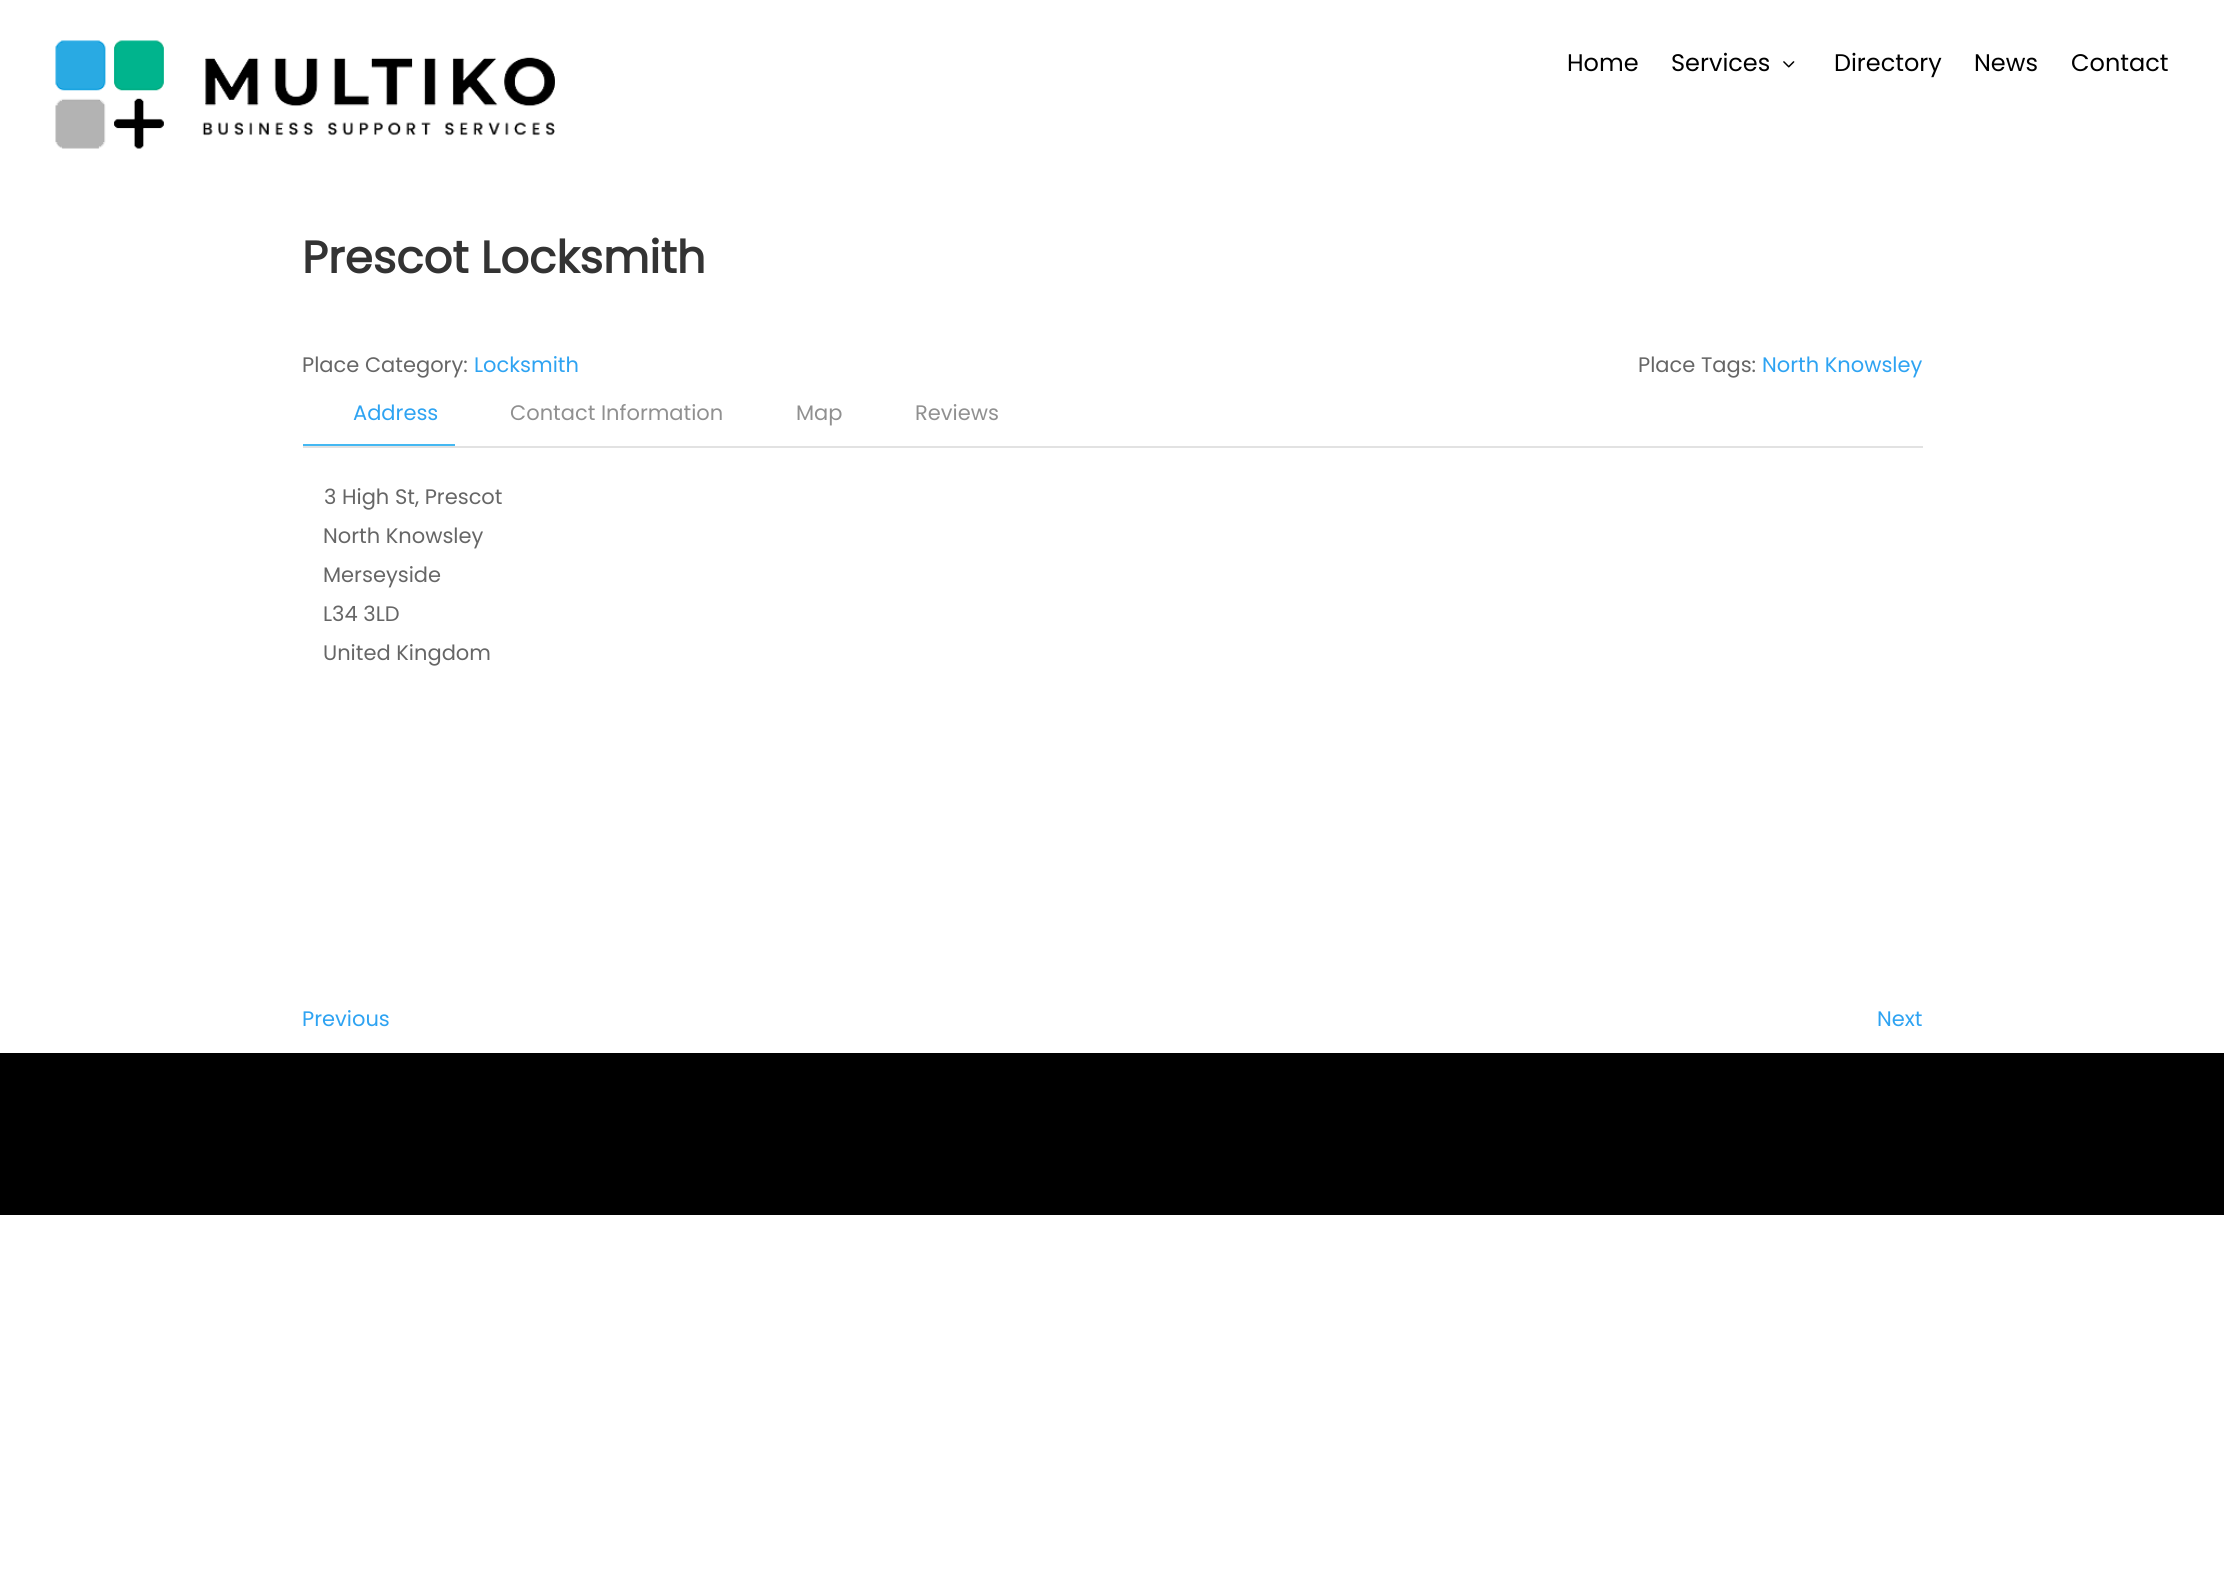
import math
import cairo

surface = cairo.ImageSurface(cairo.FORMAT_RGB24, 2224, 1587)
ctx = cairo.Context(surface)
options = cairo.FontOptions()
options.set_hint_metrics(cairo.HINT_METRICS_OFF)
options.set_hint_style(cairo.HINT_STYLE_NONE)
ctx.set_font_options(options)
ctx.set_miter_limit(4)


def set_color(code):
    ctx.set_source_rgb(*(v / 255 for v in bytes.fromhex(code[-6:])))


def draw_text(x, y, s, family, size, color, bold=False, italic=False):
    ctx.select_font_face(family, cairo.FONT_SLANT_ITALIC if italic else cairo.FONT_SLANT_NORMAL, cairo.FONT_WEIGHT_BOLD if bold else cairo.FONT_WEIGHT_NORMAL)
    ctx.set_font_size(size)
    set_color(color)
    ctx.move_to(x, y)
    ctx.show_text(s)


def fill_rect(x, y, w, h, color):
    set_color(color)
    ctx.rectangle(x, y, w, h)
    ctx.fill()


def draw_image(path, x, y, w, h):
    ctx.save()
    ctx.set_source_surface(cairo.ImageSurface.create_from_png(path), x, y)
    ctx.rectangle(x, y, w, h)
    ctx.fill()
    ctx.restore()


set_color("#ffffff")
ctx.paint()
draw_image("assets/img1.png", 55, 40, 500, 109)
draw_text(1567, 71, "Home", "Poppins", 24, "#000000")
draw_text(1671, 71, "Services", "Poppins", 24, "#000000")
draw_image("assets/img2.png", 1783, 61, 12, 7)
draw_text(1834, 71, "Directory", "Poppins", 24, "#000000")
draw_text(1974, 71, "News", "Poppins", 24, "#000000")
draw_text(2071, 71, "Contact", "Poppins", 24, "#000000")
draw_text(302, 273, "Prescot Locksmith", "Poppins", 45, "#333333", bold=True)
draw_text(302, 372, "Place Category:", "Poppins", 21, "#666666")
draw_text(474, 372, "Locksmith", "Poppins", 21, "#2ea3f2")
draw_text(1638, 372, "Place Tags:", "Poppins", 21, "#666666")
draw_text(1762, 372, "North Knowsley", "Poppins", 21, "#2ea3f2")
fill_rect(303, 446, 1620, 2, "#e2e2e2")
fill_rect(303, 444, 152, 2, "#45b8f2")
draw_text(353, 420, "Address", "Poppins", 21, "#2ea3f2")
draw_text(510, 420, "Contact Information", "Poppins", 21, "#909090")
draw_text(796, 420, "Map", "Poppins", 21, "#909090")
draw_text(915, 420, "Reviews", "Poppins", 21, "#909090")
draw_text(324, 504, "3 High St, Prescot", "Poppins", 21, "#666666")
draw_text(323, 543, "North Knowsley", "Poppins", 21, "#666666")
draw_text(323, 582, "Merseyside", "Poppins", 21, "#666666")
draw_text(323, 621, "L34 3LD", "Poppins", 21, "#666666")
draw_text(323, 660, "United Kingdom", "Poppins", 21, "#666666")
draw_text(302, 1026, "Previous", "Poppins", 21, "#2ea3f2")
draw_text(1877, 1026, "Next", "Poppins", 21, "#2ea3f2")
fill_rect(0, 1053, 2224, 162, "#000000")
surface.write_to_png("output.png")
